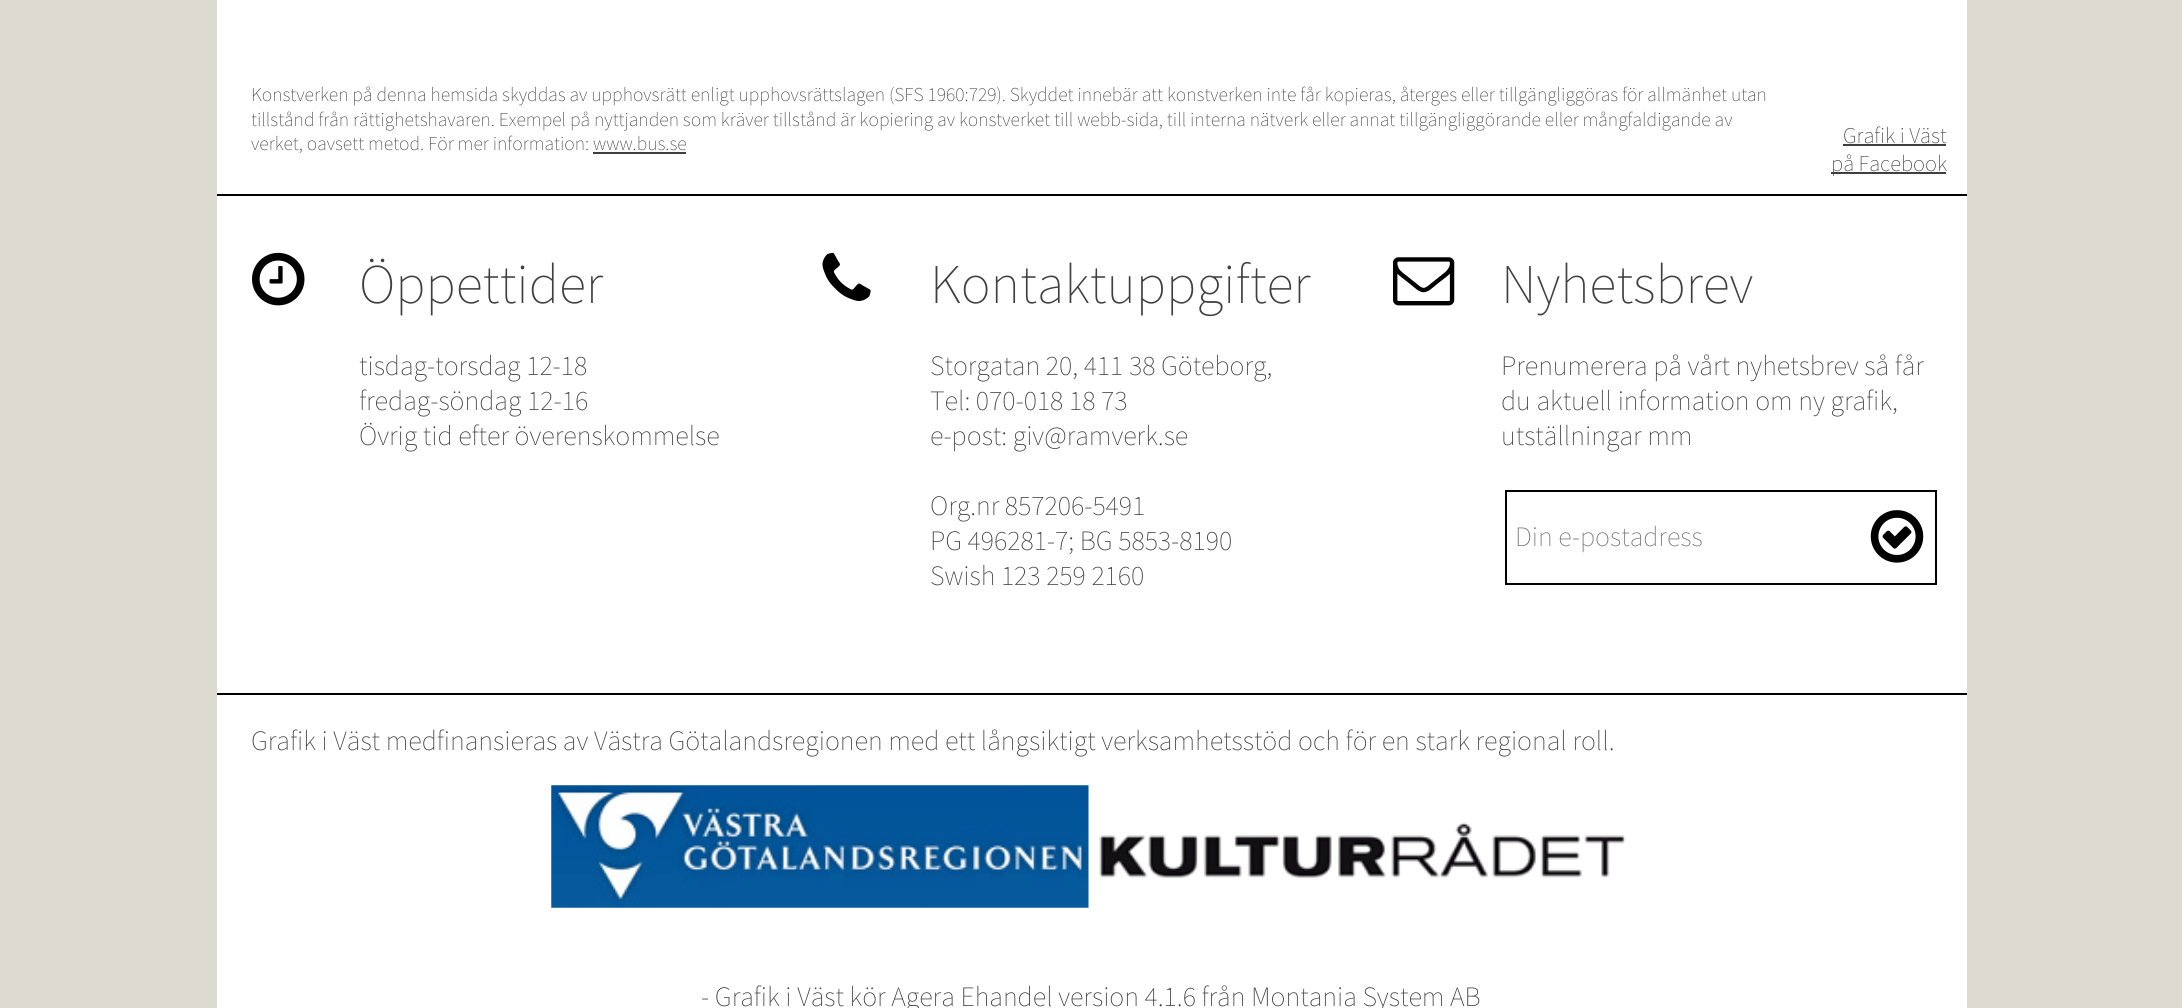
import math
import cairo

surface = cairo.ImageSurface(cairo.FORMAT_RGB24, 2182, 1008)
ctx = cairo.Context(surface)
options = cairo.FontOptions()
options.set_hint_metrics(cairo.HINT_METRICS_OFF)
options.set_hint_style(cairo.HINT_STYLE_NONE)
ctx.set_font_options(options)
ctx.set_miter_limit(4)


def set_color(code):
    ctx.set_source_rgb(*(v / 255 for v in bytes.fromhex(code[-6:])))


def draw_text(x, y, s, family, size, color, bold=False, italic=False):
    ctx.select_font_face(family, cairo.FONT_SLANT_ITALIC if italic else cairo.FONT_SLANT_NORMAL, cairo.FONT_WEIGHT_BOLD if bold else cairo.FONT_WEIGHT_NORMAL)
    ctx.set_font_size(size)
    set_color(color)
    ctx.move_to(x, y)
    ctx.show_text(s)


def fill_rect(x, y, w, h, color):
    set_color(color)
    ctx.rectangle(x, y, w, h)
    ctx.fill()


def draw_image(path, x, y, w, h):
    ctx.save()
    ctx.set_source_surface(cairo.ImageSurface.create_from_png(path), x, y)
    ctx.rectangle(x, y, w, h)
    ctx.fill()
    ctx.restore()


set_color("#dddad1")
ctx.paint()
fill_rect(217, 0, 1750, 1008, "#ffffff")
fill_rect(217, 194, 1750, 2, "#000000")
draw_text(251, 101, "Konstverken på denna hemsida skyddas av upphovsrätt enligt upphovsrättslagen (SFS 1960:729). Skyddet innebär att konstverken inte får kopieras, återges eller tillgängliggöras för allmänhet utan", "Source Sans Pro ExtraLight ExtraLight", 19.6, "#3f3f3f")
draw_text(251, 126, "tillstånd från rättighetshavaren. Exempel på nyttjanden som kräver tillstånd är kopiering av konstverket till webb-sida, till interna nätverk eller annat tillgängliggörande eller mångfaldigande av", "Source Sans Pro ExtraLight ExtraLight", 19.6, "#3f3f3f")
draw_text(251, 150, "verket, oavsett metod. För mer information: www.bus.se", "Source Sans Pro ExtraLight ExtraLight", 19.6, "#3f3f3f")
fill_rect(593, 152, 93, 2, "#3f3f3f")
draw_text(1843, 143, "Grafik i Väst", "Source Sans Pro ExtraLight ExtraLight", 22.5, "#3f3f3f")
fill_rect(1843, 144, 103, 2, "#3f3f3f")
fill_rect(1831, 172, 115, 2, "#3f3f3f")
draw_text(1831, 171, "på Facebook", "Source Sans Pro ExtraLight ExtraLight", 22.5, "#3f3f3f")
fill_rect(217, 693, 1750, 2, "#000000")
draw_image("assets/img1.png", 252, 252, 53, 54)
draw_text(359, 303, "Öppettider", "Source Sans Pro ExtraLight ExtraLight", 56, "#3f3f3f")
draw_text(359, 375, "tisdag-torsdag 12-18", "Source Sans Pro ExtraLight ExtraLight", 28, "#3f3f3f")
draw_text(359, 410, "fredag-söndag 12-16", "Source Sans Pro ExtraLight ExtraLight", 28, "#3f3f3f")
draw_text(359, 445, "Övrig tid efter överenskommelse", "Source Sans Pro ExtraLight ExtraLight", 28, "#3f3f3f")
draw_image("assets/img2.png", 822, 252, 49, 49)
draw_text(930, 303, "Kontaktuppgifter", "Source Sans Pro ExtraLight ExtraLight", 56, "#3f3f3f")
draw_text(930, 375, "Storgatan 20, 411 38 Göteborg,", "Source Sans Pro ExtraLight ExtraLight", 28, "#3f3f3f")
draw_text(930, 410, "Tel: 070-018 18 73", "Source Sans Pro ExtraLight ExtraLight", 28, "#3f3f3f")
draw_text(930, 445, "e-post: giv@ramverk.se", "Source Sans Pro ExtraLight ExtraLight", 28, "#3f3f3f")
draw_text(930, 515, "Org.nr 857206-5491", "Source Sans Pro ExtraLight ExtraLight", 28, "#3f3f3f")
draw_text(930, 550, "PG 496281-7; BG 5853-8190", "Source Sans Pro ExtraLight ExtraLight", 28, "#3f3f3f")
draw_text(930, 585, "Swish 123 259 2160", "Source Sans Pro ExtraLight ExtraLight", 28, "#3f3f3f")
draw_image("assets/img3.png", 1393, 257, 62, 49)
draw_text(1501, 303, "Nyhetsbrev", "Source Sans Pro ExtraLight ExtraLight", 56, "#3f3f3f")
draw_text(1501, 375, "Prenumerera på vårt nyhetsbrev så får", "Source Sans Pro ExtraLight ExtraLight", 28, "#3f3f3f")
draw_text(1501, 410, "du aktuell information om ny grafik,", "Source Sans Pro ExtraLight ExtraLight", 28, "#3f3f3f")
draw_text(1501, 445, "utställningar mm", "Source Sans Pro ExtraLight ExtraLight", 28, "#3f3f3f")
ctx.rectangle(1506, 491, 430, 93)
set_color("#000000")
ctx.stroke()
draw_text(1515, 546, "Din e-postadress", "Source Sans Pro ExtraLight ExtraLight", 28, "#757575")
draw_image("assets/img4.png", 1870, 510, 54, 53)
draw_text(251, 750, "Grafik i Väst medfinansieras av Västra Götalandsregionen med ett långsiktigt verksamhetsstöd och för en stark regional roll.", "Source Sans Pro ExtraLight ExtraLight", 28, "#3f3f3f")
draw_image("assets/img5.png", 551, 785, 538, 123)
draw_image("assets/img6.png", 1099, 822, 527, 57)
draw_text(701, 1006, "- Grafik i Väst kör Agera Ehandel version 4.1.6 från Montania System AB", "Source Sans Pro ExtraLight ExtraLight", 28, "#3f3f3f")
surface.write_to_png("output.png")
